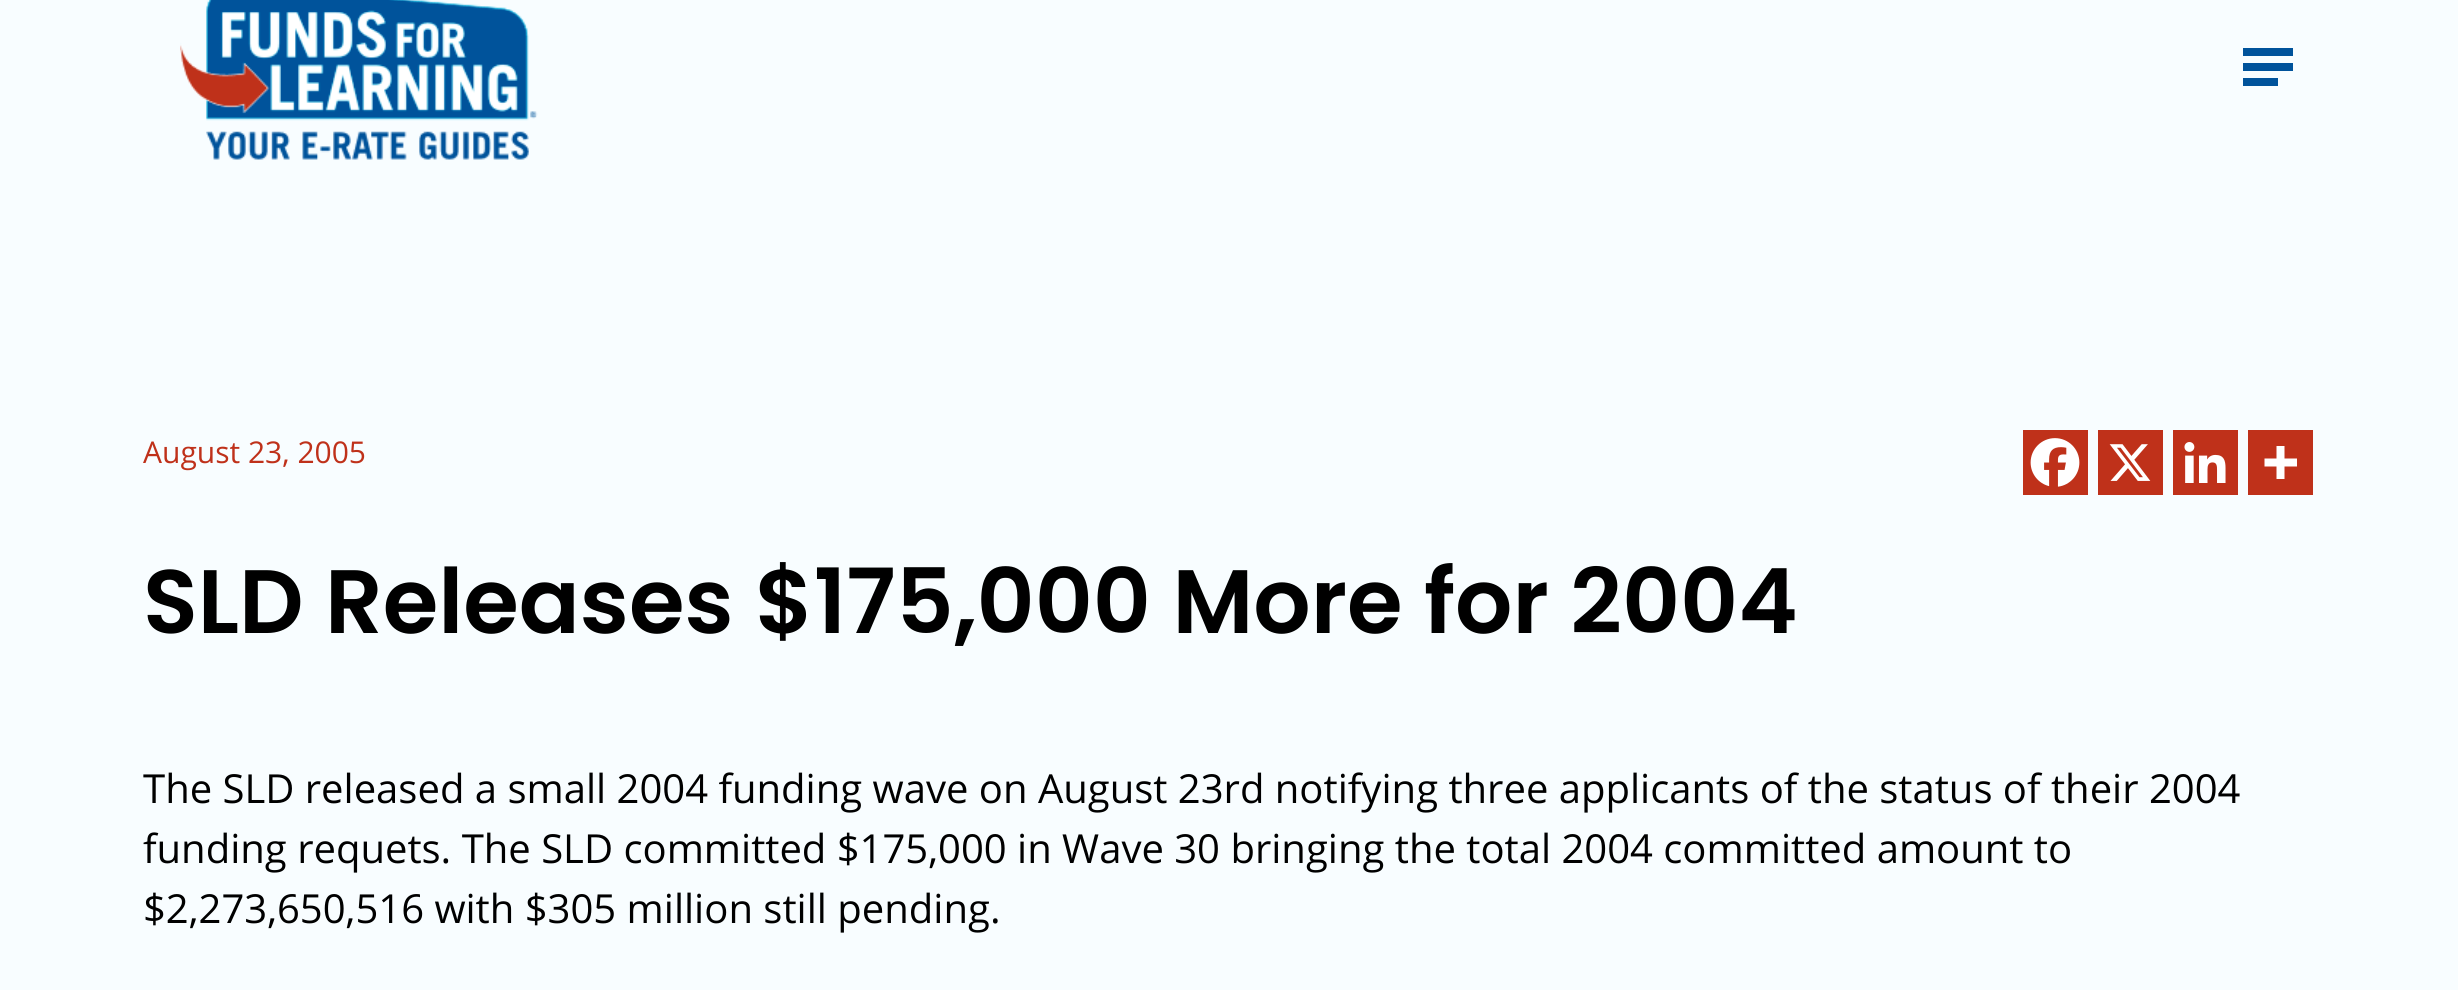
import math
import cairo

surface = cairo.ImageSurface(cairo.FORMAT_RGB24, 2458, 990)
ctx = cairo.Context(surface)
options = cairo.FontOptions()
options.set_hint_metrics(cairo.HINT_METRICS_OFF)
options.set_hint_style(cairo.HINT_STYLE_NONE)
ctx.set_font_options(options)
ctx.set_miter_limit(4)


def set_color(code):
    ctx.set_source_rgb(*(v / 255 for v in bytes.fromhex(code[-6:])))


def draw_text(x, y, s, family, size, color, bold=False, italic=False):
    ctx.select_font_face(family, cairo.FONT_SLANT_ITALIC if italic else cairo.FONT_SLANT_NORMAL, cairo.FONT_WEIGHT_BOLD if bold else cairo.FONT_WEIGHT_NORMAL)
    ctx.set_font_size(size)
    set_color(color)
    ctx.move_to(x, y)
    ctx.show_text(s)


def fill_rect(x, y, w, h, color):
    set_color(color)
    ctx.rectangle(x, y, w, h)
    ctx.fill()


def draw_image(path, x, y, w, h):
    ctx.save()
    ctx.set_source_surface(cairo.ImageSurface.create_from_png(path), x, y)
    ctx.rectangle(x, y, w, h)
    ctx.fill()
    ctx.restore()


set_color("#f8fdff")
ctx.paint()
draw_image("assets/img1.png", 180, 0, 358, 160)
fill_rect(2243, 63, 50, 8, "#00539b")
fill_rect(2243, 48, 50, 8, "#00539b")
fill_rect(2243, 78, 35, 8, "#00539b")
draw_text(143, 463, "August 23, 2005", "Open Sans", 30, "#bf311a")
fill_rect(2023, 430, 65, 65, "#bf311a")
draw_image("assets/img2.png", 2030, 438, 50, 49)
fill_rect(2098, 430, 65, 65, "#bf311a")
draw_image("assets/img3.png", 2109, 444, 42, 37)
fill_rect(2173, 430, 65, 65, "#bf311a")
draw_image("assets/img4.png", 2184, 442, 42, 41)
fill_rect(2248, 430, 65, 65, "#bf311a")
set_color("#ffffff")
ctx.set_fill_rule(cairo.FILL_RULE_EVEN_ODD)
ctx.new_path()
ctx.move_to(2284.5, 458.5)
ctx.line_to(2284.5, 446)
ctx.line_to(2276.5, 446)
ctx.line_to(2276.5, 458.5)
ctx.line_to(2264.5, 458.5)
ctx.line_to(2264.5, 466.5)
ctx.line_to(2276.5, 466.5)
ctx.line_to(2276.5, 479)
ctx.line_to(2284.5, 479)
ctx.line_to(2284.5, 466.5)
ctx.line_to(2297, 466.5)
ctx.line_to(2297, 458.5)
ctx.close_path()
ctx.fill()
draw_text(143, 633, "SLD Releases $175,000 More for 2004", "Poppins SemiBold", 90, "#000000")
draw_text(143, 803, "The SLD released a small 2004 funding wave on August 23rd notifying three applicants of the status of their 2004", "Open Sans", 40, "#000000")
draw_text(143, 863, "funding requets. The SLD committed $175,000 in Wave 30 bringing the total 2004 committed amount to", "Open Sans", 40, "#000000")
draw_text(143, 923, "$2,273,650,516 with $305 million still pending.", "Open Sans", 40, "#000000")
surface.write_to_png("output.png")
